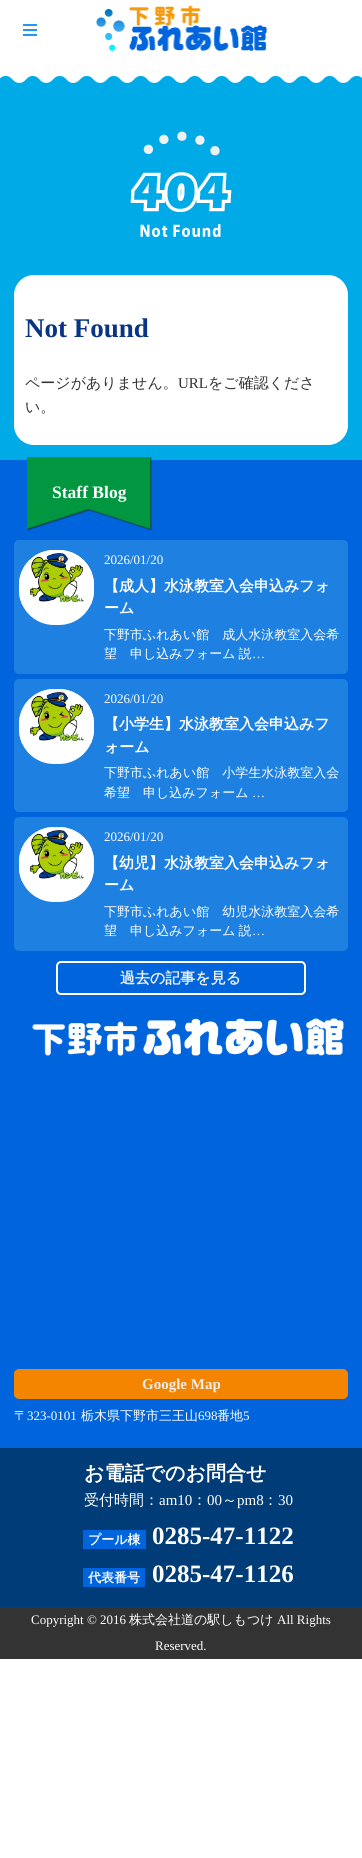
import math
import cairo

surface = cairo.ImageSurface(cairo.FORMAT_RGB24, 362, 1858)
ctx = cairo.Context(surface)
options = cairo.FontOptions()
options.set_hint_metrics(cairo.HINT_METRICS_OFF)
options.set_hint_style(cairo.HINT_STYLE_NONE)
ctx.set_font_options(options)
ctx.set_miter_limit(4)


def set_color(code):
    ctx.set_source_rgb(*(v / 255 for v in bytes.fromhex(code[-6:])))


def draw_text(x, y, s, family, size, color, bold=False, italic=False):
    ctx.select_font_face(family, cairo.FONT_SLANT_ITALIC if italic else cairo.FONT_SLANT_NORMAL, cairo.FONT_WEIGHT_BOLD if bold else cairo.FONT_WEIGHT_NORMAL)
    ctx.set_font_size(size)
    set_color(color)
    ctx.move_to(x, y)
    ctx.show_text(s)


def draw_spaced(x, y, s, letter, word):
    ctx.move_to(x, y)
    for ch in s:
        ctx.show_text(ch)
        ctx.rel_move_to(letter + word * (ch == ' '), 0)


def fill_rect(x, y, w, h, color):
    set_color(color)
    ctx.rectangle(x, y, w, h)
    ctx.fill()


def rounded_rect(x, y, w, h, r):
    ctx.new_sub_path()
    for i, (u, v) in enumerate([(x + w - r, y + h - r), (x + r, y + h - r), (x + r, y + r), (x + w - r, y + r)]):
        ctx.arc(u, v, r, i * math.pi / 2, (i + 1) * math.pi / 2)
    ctx.close_path()


def draw_image(path, x, y, w, h):
    ctx.save()
    ctx.set_source_surface(cairo.ImageSurface.create_from_png(path), x, y)
    ctx.rectangle(x, y, w, h)
    ctx.fill()
    ctx.restore()


set_color("#ffffff")
ctx.paint()
fill_rect(23, 29, 14, 2, "#2196f3")
fill_rect(23, 24, 14, 2, "#2196f3")
fill_rect(23, 34, 14, 2, "#2196f3")
draw_image("assets/img1.png", 96, 5, 172, 46)
fill_rect(0, 275, 362, 185, "#00aae7")
draw_image("assets/img2.png", 0, 76, 362, 199)
draw_image("assets/img3.png", 130, 131, 102, 106)
set_color("#ffffff")
rounded_rect(14, 275, 334, 170, 20)
ctx.fill()
draw_text(25, 337, "Not Found", "Liberation Serif", 27, "#073484", bold=True)
draw_text(25, 388, "ページがありません。", "WenQuanYi Zen Hei Medium", 15, "#333333")
draw_text(178, 388, "URL", "Liberation Serif", 15, "#333333")
draw_text(208, 388, "をご確認くださ", "WenQuanYi Zen Hei Medium", 15, "#333333")
draw_text(25, 412, "い。", "WenQuanYi Zen Hei Medium", 15, "#333333")
fill_rect(0, 460, 362, 988, "#0065dd")
draw_image("assets/img4.png", 27, 457, 125, 74)
draw_text(52, 498, "Staff Blog", "Liberation Serif", 17.5, "#ffffff", bold=True)
set_color("#1e81e2")
rounded_rect(14, 540, 334, 134, 5)
ctx.fill()
set_color("#ffffff")
rounded_rect(19, 550, 75, 75, 35)
ctx.fill()
draw_image("assets/img5.png", 19, 550, 75, 55)
draw_text(104, 564, "2026/01/20", "Liberation Serif", 13, "#ffffff")
draw_text(104, 591, "【成人】水泳教室入会申込みフォ", "WenQuanYi Zen Hei", 15, "#ffffff", bold=True)
draw_text(104, 613, "ーム", "WenQuanYi Zen Hei", 15, "#ffffff", bold=True)
draw_text(104, 639, "下野市ふれあい館　成人水泳教室入会希", "WenQuanYi Zen Hei Medium", 13, "#ffffff")
draw_spaced(104, 658, "望　申し込みフォーム 説", 0, -1)
draw_text(252, 658, "…", "Liberation Serif", 13, "#ffffff")
set_color("#1e81e2")
rounded_rect(14, 679, 334, 133, 5)
ctx.fill()
set_color("#ffffff")
rounded_rect(19, 689, 75, 75, 35)
ctx.fill()
draw_image("assets/img5.png", 19, 689, 75, 55)
draw_text(104, 703, "2026/01/20", "Liberation Serif", 13, "#ffffff")
draw_text(104, 729, "【小学生】水泳教室入会申込みフ", "WenQuanYi Zen Hei", 15, "#ffffff", bold=True)
draw_text(104, 752, "ォーム", "WenQuanYi Zen Hei", 15, "#ffffff", bold=True)
draw_text(104, 777, "下野市ふれあい館　小学生水泳教室入会", "WenQuanYi Zen Hei Medium", 13, "#ffffff")
draw_text(104, 797, "希望　申し込みフォーム", "WenQuanYi Zen Hei Medium", 13, "#ffffff")
draw_text(252, 797, "…", "Liberation Serif", 13, "#ffffff")
set_color("#1e81e2")
rounded_rect(14, 817, 334, 134, 5)
ctx.fill()
set_color("#ffffff")
rounded_rect(19, 827, 75, 75, 35)
ctx.fill()
draw_image("assets/img5.png", 19, 827, 75, 55)
draw_text(104, 841, "2026/01/20", "Liberation Serif", 13, "#ffffff")
draw_text(104, 868, "【幼児】水泳教室入会申込みフォ", "WenQuanYi Zen Hei", 15, "#ffffff", bold=True)
draw_text(104, 890, "ーム", "WenQuanYi Zen Hei", 15, "#ffffff", bold=True)
draw_text(104, 916, "下野市ふれあい館　幼児水泳教室入会希", "WenQuanYi Zen Hei Medium", 13, "#ffffff")
draw_spaced(104, 935, "望　申し込みフォーム 説", 0, -1)
draw_text(252, 935, "…", "Liberation Serif", 13, "#ffffff")
rounded_rect(57, 962, 248, 32, 4)
ctx.stroke()
draw_text(120, 983, "過去の記事を見る", "WenQuanYi Zen Hei", 15, "#eeeeee", bold=True)
draw_image("assets/img6.png", 32, 1018, 312, 38)
set_color("#f48500")
rounded_rect(14, 1369, 334, 30, 5)
ctx.fill()
draw_text(142, 1389, "Google Map", "Liberation Serif", 15, "#eeeeee", bold=True)
draw_text(14, 1420, "〒", "WenQuanYi Zen Hei Medium", 13, "#ffffff")
draw_text(27, 1420, "323-0101", "Liberation Serif", 13, "#ffffff")
draw_text(81, 1420, "栃木県下野市三王山", "WenQuanYi Zen Hei Medium", 13, "#ffffff")
draw_text(198, 1420, "698", "Liberation Serif", 13, "#ffffff")
draw_text(217, 1420, "番地", "WenQuanYi Zen Hei Medium", 13, "#ffffff")
draw_text(243, 1420, "5", "Liberation Serif", 13, "#ffffff")
fill_rect(0, 1448, 362, 159, "#003c77")
draw_text(84, 1480, "お電話でのお問合せ", "WenQuanYi Zen Hei", 20, "#ffffff", bold=True)
draw_text(84, 1505, "受付時間：", "WenQuanYi Zen Hei Medium", 15, "#ffffff")
draw_text(159, 1505, "am10", "Liberation Serif", 15, "#ffffff")
draw_text(192, 1505, "：", "WenQuanYi Zen Hei Medium", 15, "#ffffff")
draw_text(207, 1505, "00", "Liberation Serif", 15, "#ffffff")
draw_text(222, 1505, "～", "WenQuanYi Zen Hei Medium", 15, "#ffffff")
draw_text(237, 1505, "pm8", "Liberation Serif", 15, "#ffffff")
draw_text(263, 1505, "：", "WenQuanYi Zen Hei Medium", 15, "#ffffff")
draw_text(278, 1505, "30", "Liberation Serif", 15, "#ffffff")
fill_rect(83, 1530, 63, 19, "#0065dd")
draw_text(88, 1544, "プール棟", "WenQuanYi Zen Hei", 13, "#ffffff", bold=True)
draw_text(152, 1544, "0285-47-1122", "Liberation Serif", 25, "#ffffff", bold=True)
fill_rect(83, 1568, 62, 19, "#0065dd")
draw_text(88, 1582, "代表番号", "WenQuanYi Zen Hei", 13, "#ffffff", bold=True)
draw_text(152, 1582, "0285-47-1126", "Liberation Serif", 25, "#ffffff", bold=True)
fill_rect(0, 1607, 362, 52, "#333333")
draw_text(31, 1624, "Copyright © 2016", "Liberation Serif", 13, "#ffffff")
draw_text(129, 1624, "株式会社道の駅しもつけ", "WenQuanYi Zen Hei Medium", 13, "#ffffff")
draw_text(277, 1624, "All Rights", "Liberation Serif", 13, "#ffffff")
draw_text(155, 1650, "Reserved.", "Liberation Serif", 13, "#ffffff")
surface.write_to_png("output.png")
